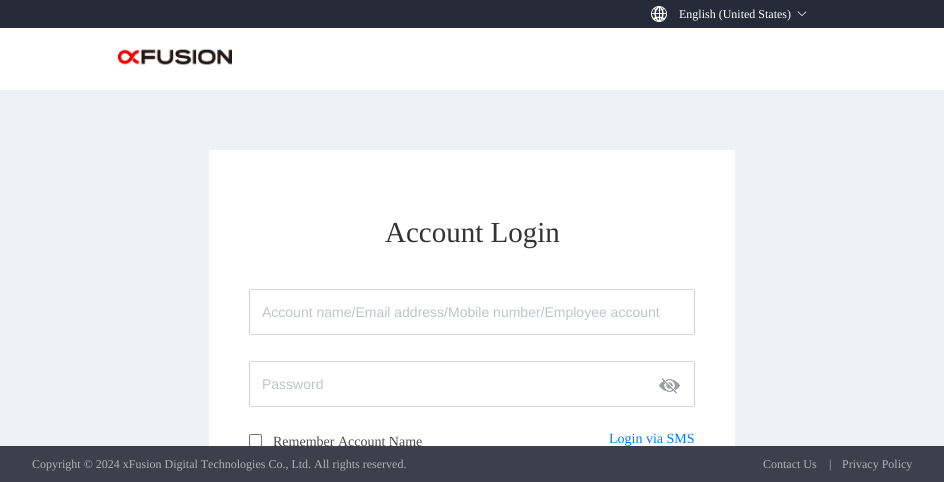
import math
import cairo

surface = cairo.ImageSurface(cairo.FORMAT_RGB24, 944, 482)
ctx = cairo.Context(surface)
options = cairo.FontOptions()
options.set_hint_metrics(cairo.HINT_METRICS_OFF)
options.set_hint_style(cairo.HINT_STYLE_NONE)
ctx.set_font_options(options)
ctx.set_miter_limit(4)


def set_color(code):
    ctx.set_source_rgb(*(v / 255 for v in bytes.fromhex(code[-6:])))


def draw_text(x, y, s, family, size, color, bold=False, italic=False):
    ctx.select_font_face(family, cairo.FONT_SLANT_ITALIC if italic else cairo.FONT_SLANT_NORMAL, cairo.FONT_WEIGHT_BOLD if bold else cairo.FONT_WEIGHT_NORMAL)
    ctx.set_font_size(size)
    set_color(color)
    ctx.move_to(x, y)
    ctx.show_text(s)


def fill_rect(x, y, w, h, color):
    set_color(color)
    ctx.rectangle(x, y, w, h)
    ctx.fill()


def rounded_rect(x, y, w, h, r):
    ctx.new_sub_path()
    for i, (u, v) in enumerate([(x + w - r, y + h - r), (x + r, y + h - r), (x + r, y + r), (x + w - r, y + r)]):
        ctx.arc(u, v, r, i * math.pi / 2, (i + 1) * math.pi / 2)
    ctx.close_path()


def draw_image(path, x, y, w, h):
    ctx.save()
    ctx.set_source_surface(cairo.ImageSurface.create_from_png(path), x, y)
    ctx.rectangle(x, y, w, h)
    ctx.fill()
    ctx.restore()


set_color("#eff1f5")
ctx.paint()
fill_rect(0, 0, 944, 28, "#262b3a")
draw_image("assets/img1.png", 651, 6, 16, 16)
draw_text(679, 18, "English (United States)", "Liberation Serif", 12, "#ffffff")
draw_image("assets/img2.png", 797, 11, 10, 5)
fill_rect(0, 28, 944, 62, "#ffffff")
draw_image("assets/img3.png", 118, 49, 114, 16)
fill_rect(209, 150, 526, 296, "#ffffff")
draw_text(385, 242, "Account Login", "Liberation Serif", 29, "#333333")
rounded_rect(249.5, 289.5, 445, 45, 1.5)
set_color("#d4d4d4")
ctx.set_line_width(1)
ctx.stroke()
draw_text(262, 317, "Account name/Email address/Mobile number/Employee account", "Liberation Sans", 14, "#c0c4cc")
rounded_rect(249.5, 361.5, 445, 45, 1.5)
set_color("#d4d4d4")
ctx.stroke()
draw_text(262, 389, "Password", "Liberation Sans", 14, "#c0c4cc")
draw_image("assets/img4.png", 659, 378, 21, 16)
rounded_rect(249.5, 434.5, 12, 12, 1.5)
set_color("#767676")
ctx.stroke()
draw_text(273, 446, "Remember Account Name", "Liberation Serif", 14, "#4a4a4a")
draw_text(609, 443, "Login via SMS", "Liberation Serif", 14, "#007dff")
fill_rect(0, 446, 944, 36, "#3e3f4a")
draw_text(32, 468, "Copyright © 2024 xFusion Digital Technologies Co., Ltd. All rights reserved.", "Liberation Serif", 12, "#afb1b6")
draw_text(763, 468, "Contact Us", "Liberation Serif", 12, "#afb1b6")
draw_text(829, 468, "|", "Liberation Serif", 12, "#afb1b6")
draw_text(842, 468, "Privacy Policy", "Liberation Serif", 12, "#afb1b6")
surface.write_to_png("output.png")
